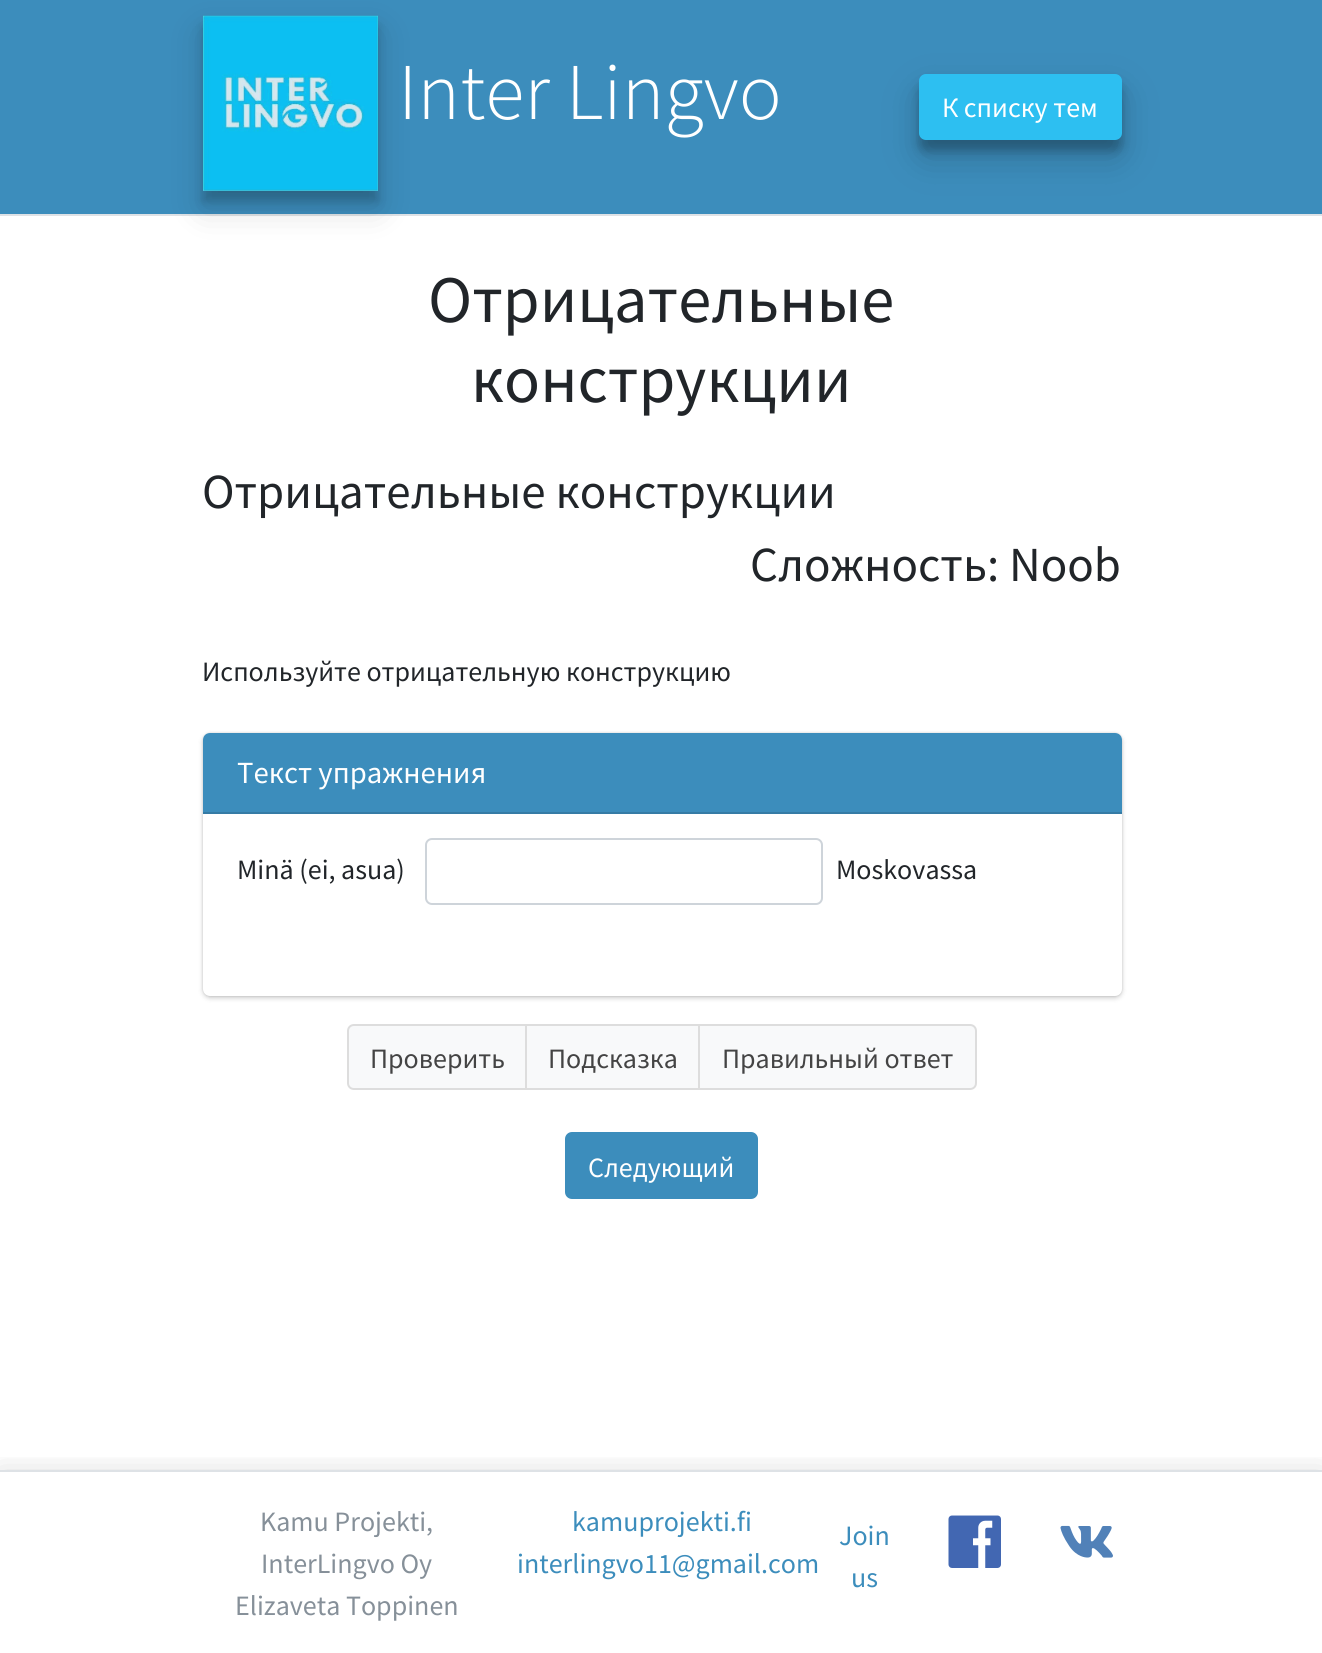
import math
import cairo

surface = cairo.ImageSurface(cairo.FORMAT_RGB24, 1322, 1653)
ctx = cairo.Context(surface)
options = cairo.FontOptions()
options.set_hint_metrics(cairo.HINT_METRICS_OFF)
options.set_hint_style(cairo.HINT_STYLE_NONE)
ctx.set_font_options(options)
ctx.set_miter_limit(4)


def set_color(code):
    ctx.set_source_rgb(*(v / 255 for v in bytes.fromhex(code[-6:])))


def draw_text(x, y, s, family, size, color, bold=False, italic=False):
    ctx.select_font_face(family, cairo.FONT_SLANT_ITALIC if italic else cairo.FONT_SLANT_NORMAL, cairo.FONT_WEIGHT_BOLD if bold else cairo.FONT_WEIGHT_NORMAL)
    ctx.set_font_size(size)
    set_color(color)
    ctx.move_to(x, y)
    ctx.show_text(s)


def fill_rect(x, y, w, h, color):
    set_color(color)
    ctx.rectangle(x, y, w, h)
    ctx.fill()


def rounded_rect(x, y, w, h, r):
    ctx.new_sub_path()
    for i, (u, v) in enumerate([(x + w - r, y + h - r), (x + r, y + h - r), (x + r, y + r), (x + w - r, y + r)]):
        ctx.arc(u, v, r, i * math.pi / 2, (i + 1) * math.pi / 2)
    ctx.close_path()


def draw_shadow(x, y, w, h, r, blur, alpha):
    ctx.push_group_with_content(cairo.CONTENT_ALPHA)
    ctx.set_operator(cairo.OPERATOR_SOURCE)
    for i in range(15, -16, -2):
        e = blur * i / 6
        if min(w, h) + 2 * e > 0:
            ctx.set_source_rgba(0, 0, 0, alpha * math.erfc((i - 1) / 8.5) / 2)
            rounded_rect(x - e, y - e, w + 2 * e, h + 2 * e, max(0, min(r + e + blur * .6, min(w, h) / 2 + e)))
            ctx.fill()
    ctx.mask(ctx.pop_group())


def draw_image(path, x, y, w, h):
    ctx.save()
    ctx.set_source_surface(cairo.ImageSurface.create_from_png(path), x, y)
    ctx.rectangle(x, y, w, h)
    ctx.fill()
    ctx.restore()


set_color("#ffffff")
ctx.paint()
fill_rect(0, 0, 1322, 214, "#3c8dbc")
fill_rect(0, 214, 1322, 2, "#dee2e6")
ctx.save()
ctx.set_fill_rule(cairo.FILL_RULE_EVEN_ODD)
ctx.new_path()
ctx.move_to(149, 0)
ctx.line_to(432, 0)
ctx.line_to(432, 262)
ctx.line_to(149, 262)
ctx.close_path()
ctx.move_to(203, 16)
ctx.line_to(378, 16)
ctx.line_to(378, 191)
ctx.line_to(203, 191)
ctx.close_path()
ctx.clip()
set_color("#000000")
draw_shadow(203, 33, 175, 175, 0, 17.5, 0.15)
ctx.restore()
ctx.save()
ctx.set_fill_rule(cairo.FILL_RULE_EVEN_ODD)
ctx.new_path()
ctx.move_to(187, 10)
ctx.line_to(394, 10)
ctx.line_to(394, 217)
ctx.line_to(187, 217)
ctx.close_path()
ctx.move_to(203, 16)
ctx.line_to(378, 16)
ctx.line_to(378, 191)
ctx.line_to(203, 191)
ctx.close_path()
ctx.clip()
set_color("#0c1c26")
draw_shadow(203, 26, 175, 175, 0, 5, 0.23)
ctx.restore()
draw_image("assets/img1.png", 203, 15, 175, 176)
draw_text(398, 119, "Inter Lingvo", "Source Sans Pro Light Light", 80.5, "#ffffff")
set_color("#000000")
draw_shadow(919, 84, 203, 67, 7, 5, 0.23)
draw_shadow(919, 91, 203, 67, 7, 17.5, 0.19)
set_color("#2dbff1")
rounded_rect(920, 75, 201, 64, 6)
ctx.fill_preserve()
ctx.stroke()
draw_text(942, 117, "К списку тем", "Source Sans Pro", 28, "#ffffff")
draw_text(428, 322, "Отрицательные", "Source Sans Pro", 66.5, "#212529")
draw_text(471, 402, "конструкции", "Source Sans Pro", 66.5, "#212529")
draw_text(202, 508, "Отрицательные конструкции", "Source Sans Pro", 49, "#212529")
draw_text(750, 581, "Сложность: Noob", "Source Sans Pro", 49, "#212529")
draw_text(202, 681, "Используйте отрицательную конструкцию", "Source Sans Pro", 28, "#212529")
set_color("#000000")
draw_shadow(203, 735, 919, 263, 7, 2.5, 0.2)
draw_shadow(203, 733, 919, 263, 7, 1, 0.12)
set_color("#ffffff")
rounded_rect(203, 733, 919, 263, 7)
ctx.fill()
set_color("#3c8dbc")
ctx.new_path()
ctx.move_to(210, 733)
ctx.line_to(1115, 733)
ctx.curve_to(1119, 733, 1122, 736, 1122, 740)
ctx.line_to(1122, 814)
ctx.line_to(203, 814)
ctx.line_to(203, 740)
ctx.curve_to(203, 736, 206, 733, 210, 733)
ctx.close_path()
ctx.fill()
fill_rect(203, 812, 919, 2, "#357ba5")
draw_text(237, 783, "Текст упражнения", "Source Sans Pro", 30.75, "#ffffff")
draw_text(237, 879, "Minä (ei, asua)", "Source Sans Pro", 28, "#212529")
rounded_rect(426, 839, 396, 65, 6)
set_color("#ced4da")
ctx.stroke()
draw_text(836, 879, "Moskovassa", "Source Sans Pro", 28, "#212529")
set_color("#f8f9fa")
ctx.new_path()
ctx.move_to(354, 1025)
ctx.line_to(526, 1025)
ctx.line_to(526, 1089)
ctx.line_to(354, 1089)
ctx.curve_to(350.5, 1089, 348, 1086.5, 348, 1083)
ctx.line_to(348, 1031)
ctx.curve_to(348, 1027.5, 350.5, 1025, 354, 1025)
ctx.close_path()
ctx.fill_preserve()
set_color("#dddddd")
ctx.stroke()
draw_text(370, 1068, "Проверить", "Source Sans Pro", 28, "#444444")
set_color("#f8f9fa")
ctx.rectangle(526, 1025, 173, 64)
ctx.fill_preserve()
set_color("#dddddd")
ctx.stroke()
draw_text(548, 1068, "Подсказка", "Source Sans Pro", 28, "#444444")
set_color("#f8f9fa")
ctx.new_path()
ctx.move_to(699, 1025)
ctx.line_to(970, 1025)
ctx.curve_to(973.5, 1025, 976, 1027.5, 976, 1031)
ctx.line_to(976, 1083)
ctx.curve_to(976, 1086.5, 973.5, 1089, 970, 1089)
ctx.line_to(699, 1089)
ctx.close_path()
ctx.fill_preserve()
set_color("#dddddd")
ctx.stroke()
draw_text(722, 1068, "Правильный ответ", "Source Sans Pro", 28, "#444444")
set_color("#3c8dbc")
rounded_rect(566, 1133, 191, 65, 6)
ctx.fill_preserve()
ctx.stroke()
draw_text(588, 1177, "Следующий", "Source Sans Pro", 28, "#ffffff")
ctx.save()
ctx.rectangle(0, 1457, 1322, 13)
ctx.clip()
set_color("#000000")
draw_shadow(0, 1477, 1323, 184, 0, 16, 0.2)
ctx.restore()
fill_rect(0, 1470, 1322, 2, "#dee2e6")
draw_text(260, 1531, "Kamu Projekti,", "Source Sans Pro", 28, "#869099")
draw_text(261, 1573, "InterLingvo Oy", "Source Sans Pro", 28, "#869099")
draw_text(235, 1615, "Elizaveta Toppinen", "Source Sans Pro", 28, "#869099")
draw_text(572, 1531, "kamuprojekti.fi", "Source Sans Pro", 28, "#3c8dbc")
draw_text(517, 1573, "interlingvo11@gmail.com", "Source Sans Pro", 28, "#3c8dbc")
draw_text(839, 1545, "Join", "Source Sans Pro", 28, "#3c8dbc")
draw_text(851, 1587, "us", "Source Sans Pro", 28, "#3c8dbc")
draw_image("assets/img2.png", 948, 1515, 53, 53)
draw_image("assets/img3.png", 1060, 1525, 53, 33)
surface.write_to_png("output.png")
